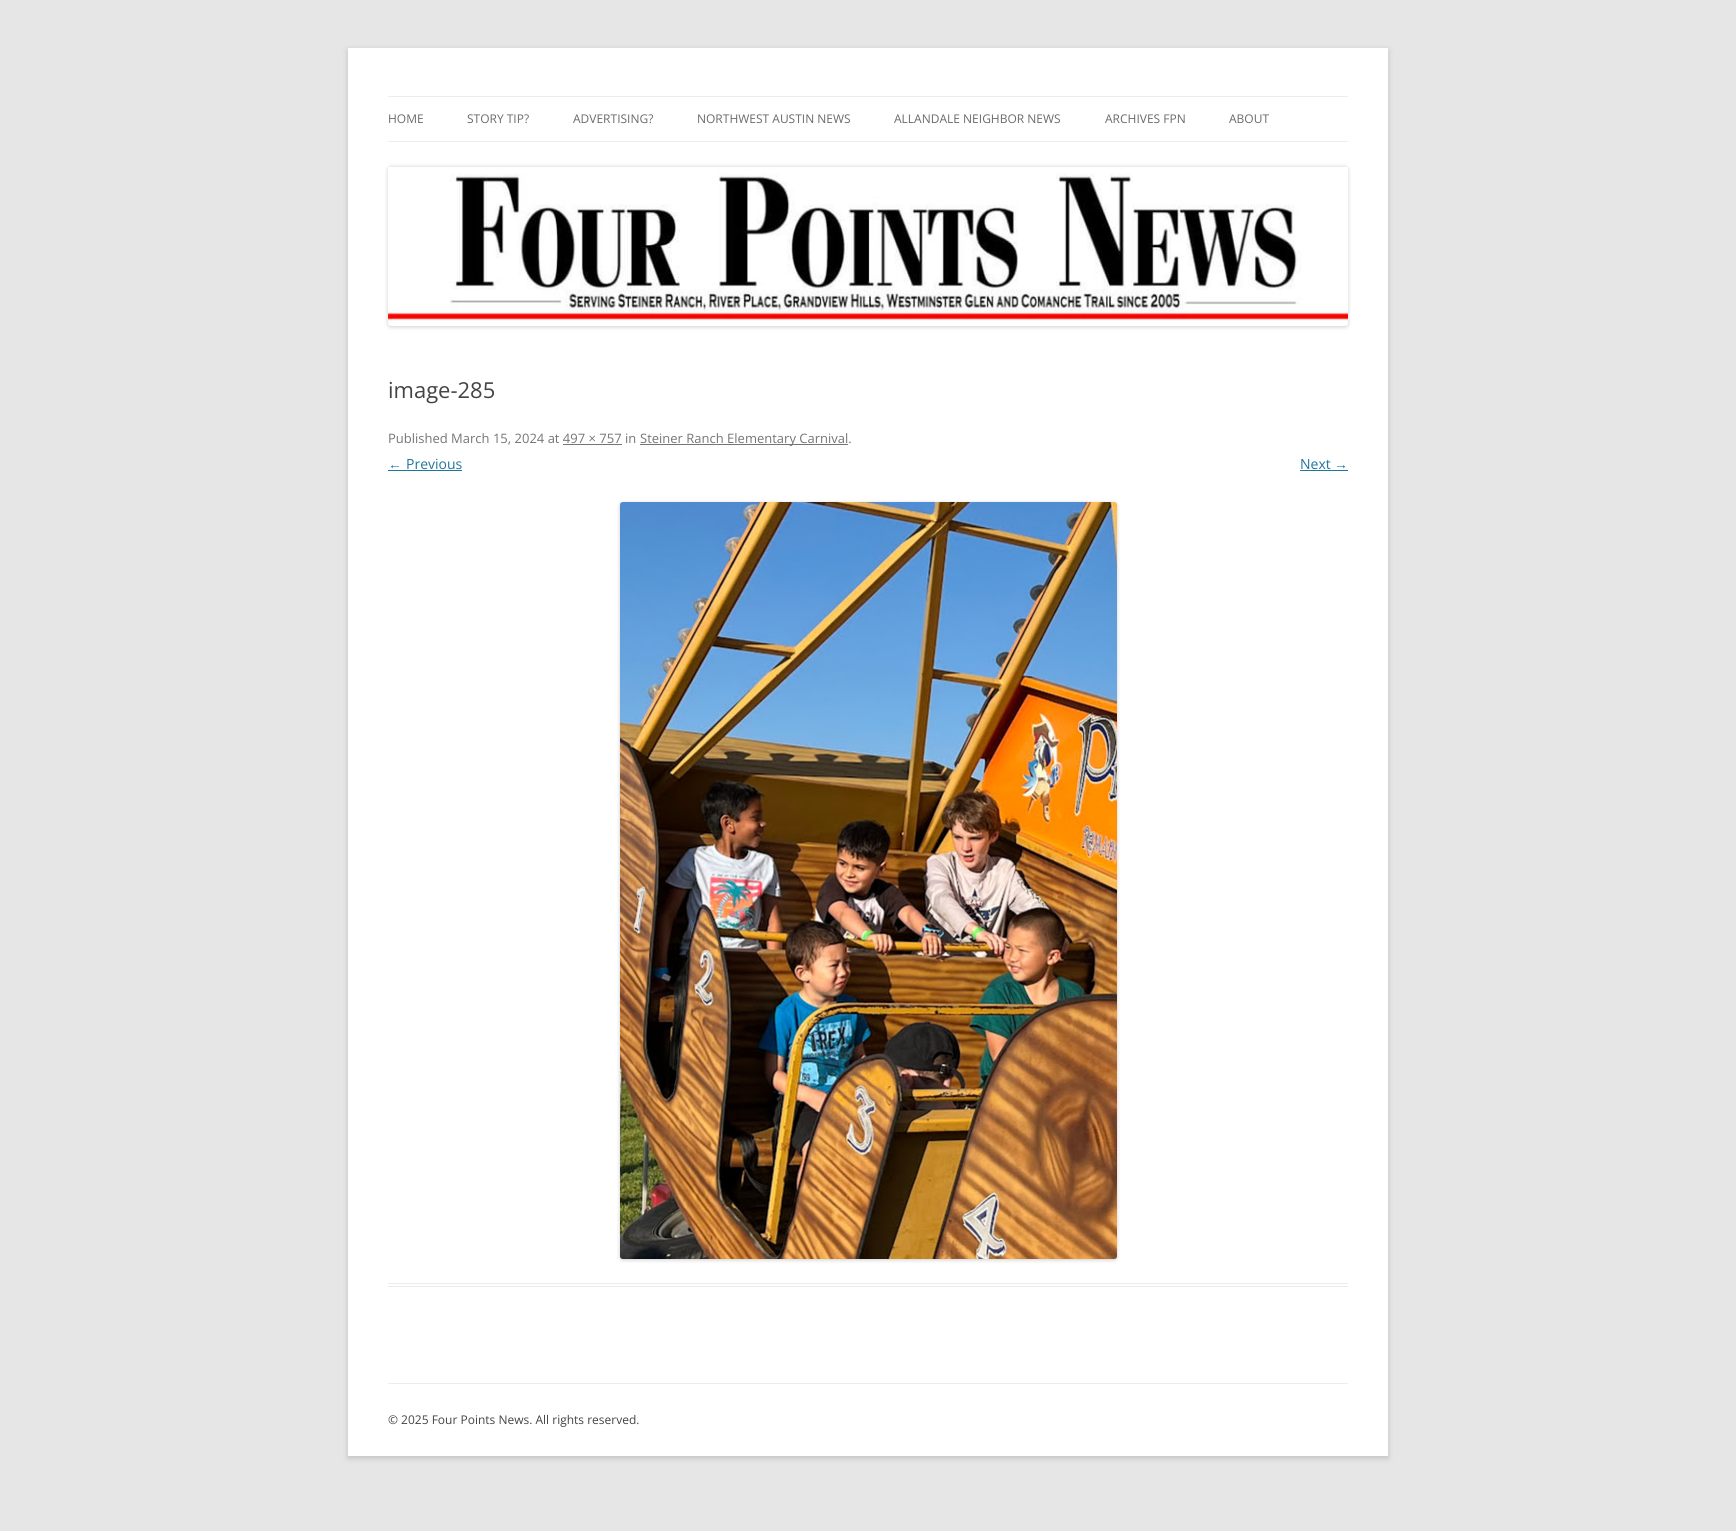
import math
import cairo

surface = cairo.ImageSurface(cairo.FORMAT_RGB24, 1736, 1531)
ctx = cairo.Context(surface)
options = cairo.FontOptions()
options.set_hint_metrics(cairo.HINT_METRICS_OFF)
options.set_hint_style(cairo.HINT_STYLE_NONE)
ctx.set_font_options(options)
ctx.set_miter_limit(4)


def set_color(code):
    ctx.set_source_rgb(*(v / 255 for v in bytes.fromhex(code[-6:])))


def draw_text(x, y, s, family, size, color, bold=False, italic=False):
    ctx.select_font_face(family, cairo.FONT_SLANT_ITALIC if italic else cairo.FONT_SLANT_NORMAL, cairo.FONT_WEIGHT_BOLD if bold else cairo.FONT_WEIGHT_NORMAL)
    ctx.set_font_size(size)
    set_color(color)
    ctx.move_to(x, y)
    ctx.show_text(s)


def fill_rect(x, y, w, h, color):
    set_color(color)
    ctx.rectangle(x, y, w, h)
    ctx.fill()


def rounded_rect(x, y, w, h, r):
    ctx.new_sub_path()
    for i, (u, v) in enumerate([(x + w - r, y + h - r), (x + r, y + h - r), (x + r, y + r), (x + w - r, y + r)]):
        ctx.arc(u, v, r, i * math.pi / 2, (i + 1) * math.pi / 2)
    ctx.close_path()


def draw_shadow(x, y, w, h, r, blur, alpha):
    ctx.push_group_with_content(cairo.CONTENT_ALPHA)
    ctx.set_operator(cairo.OPERATOR_SOURCE)
    for i in range(15, -16, -2):
        e = blur * i / 6
        if min(w, h) + 2 * e > 0:
            ctx.set_source_rgba(0, 0, 0, alpha * math.erfc((i - 1) / 8.5) / 2)
            rounded_rect(x - e, y - e, w + 2 * e, h + 2 * e, max(0, min(r + e + blur * .6, min(w, h) / 2 + e)))
            ctx.fill()
    ctx.mask(ctx.pop_group())


def draw_image(path, x, y, w, h):
    ctx.save()
    ctx.set_source_surface(cairo.ImageSurface.create_from_png(path), x, y)
    ctx.rectangle(x, y, w, h)
    ctx.fill()
    ctx.restore()


set_color("#e6e6e6")
ctx.paint()
set_color("#646464")
draw_shadow(348, 50, 1040, 1408, 0, 3, 0.3)
fill_rect(348, 48, 1040, 1408, "#ffffff")
fill_rect(388, 96, 960, 1, "#ededed")
fill_rect(388, 141, 960, 1, "#ededed")
draw_text(388, 123, "HOME", "Open Sans", 12, "#6a6a6a")
draw_text(467, 123, "STORY TIP?", "Open Sans", 12, "#6a6a6a")
draw_text(573, 123, "ADVERTISING?", "Open Sans", 12, "#6a6a6a")
draw_text(697, 123, "NORTHWEST AUSTIN NEWS", "Open Sans", 12, "#6a6a6a")
draw_text(894, 123, "ALLANDALE NEIGHBOR NEWS", "Open Sans", 12, "#6a6a6a")
draw_text(1105, 123, "ARCHIVES FPN", "Open Sans", 12, "#6a6a6a")
draw_text(1229, 123, "ABOUT", "Open Sans", 12, "#6a6a6a")
set_color("#000000")
draw_shadow(388, 167, 960, 160, 3, 2, 0.2)
draw_image("assets/img1.png", 388, 167, 960, 159)
fill_rect(388, 1283, 960, 1, "#ededed")
fill_rect(388, 1286, 960, 1, "#ededed")
draw_text(388, 398, "image-285", "Open Sans", 22, "#444444")
draw_text(388, 443, "Published March 15, 2024 at 497 × 757 in", "Open Sans", 13, "#757575")
fill_rect(640, 444, 208, 1, "#757575")
draw_text(640, 443, "Steiner Ranch Elementary Carnival.", "Open Sans", 13, "#757575")
fill_rect(563, 444, 59, 1, "#757575")
draw_text(388, 469, "←", "Liberation Sans", 14, "#21759b")
fill_rect(388, 470, 74, 1, "#21759b")
draw_text(406, 469, "Previous", "Open Sans", 14, "#21759b")
draw_text(1300, 469, "Next", "Open Sans", 14, "#21759b")
draw_text(1334, 469, "→", "Liberation Sans", 14, "#21759b")
fill_rect(1300, 470, 48, 1, "#21759b")
set_color("#000000")
draw_shadow(620, 503, 497, 757, 3, 2, 0.2)
draw_image("assets/img2.png", 620, 502, 497, 757)
fill_rect(388, 1383, 960, 1, "#ededed")
draw_text(388, 1424, "© 2025 Four Points News. All rights reserved.", "Open Sans", 12, "#444444")
surface.write_to_png("output.png")
